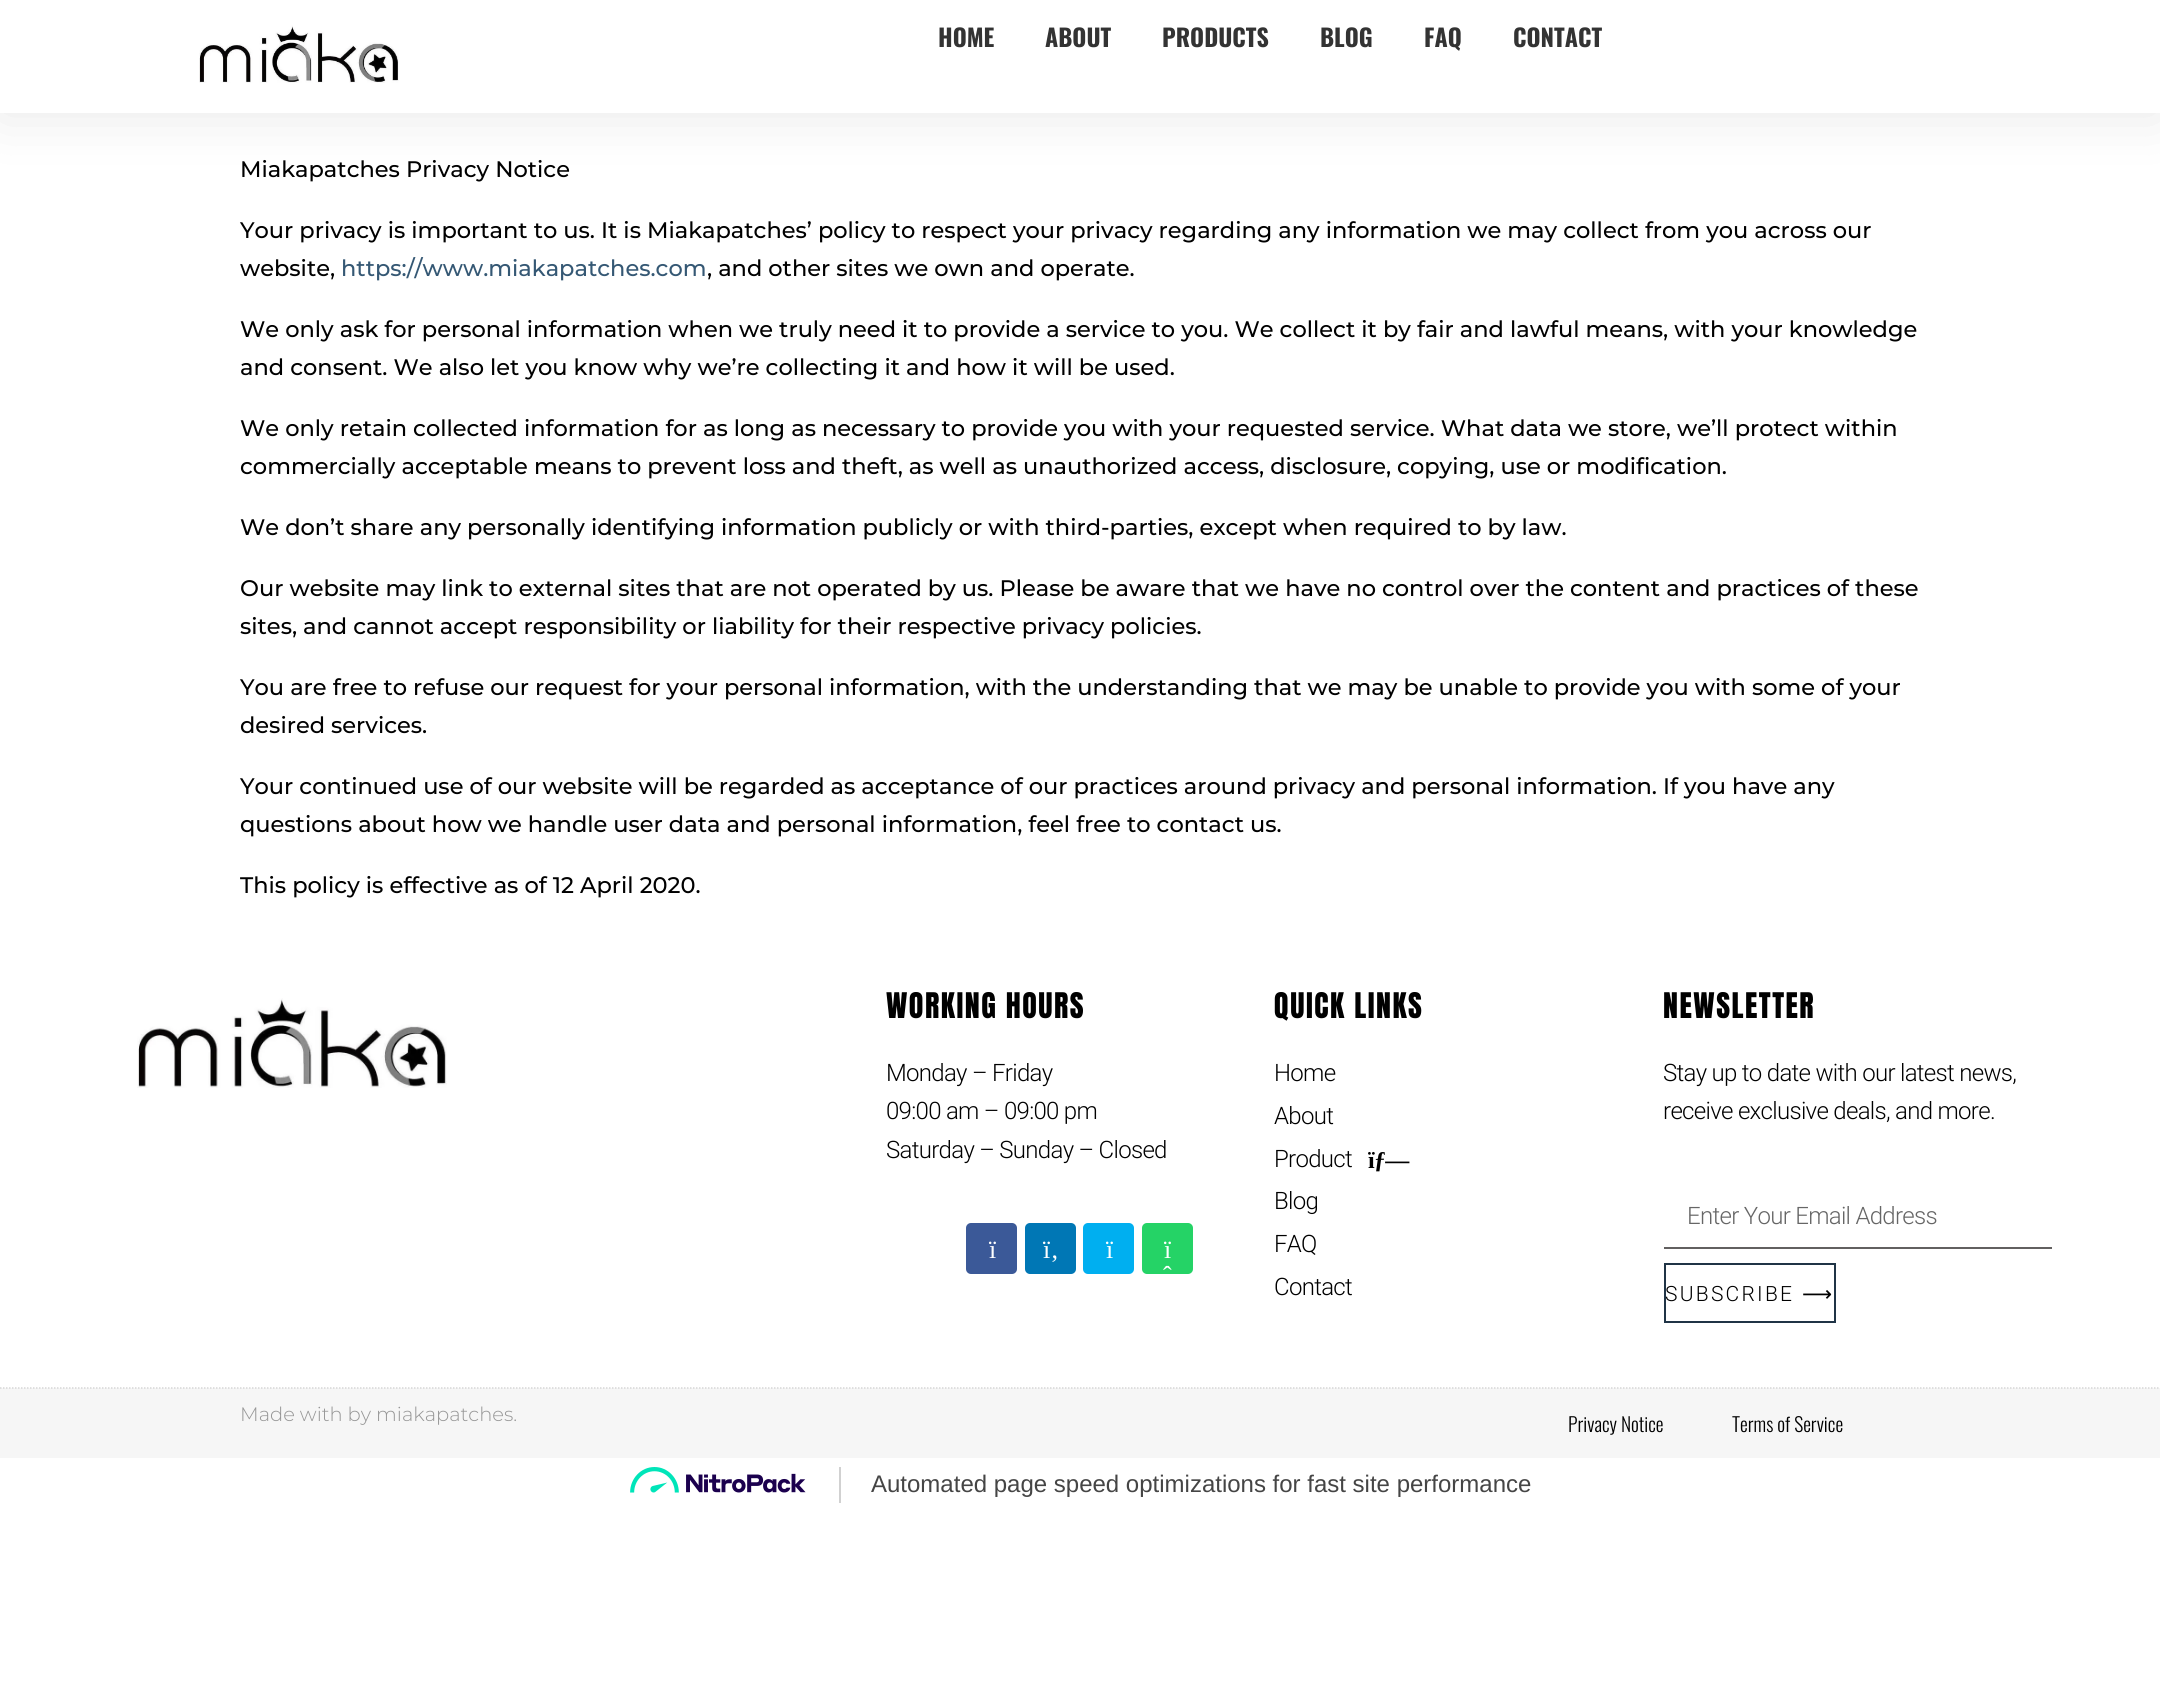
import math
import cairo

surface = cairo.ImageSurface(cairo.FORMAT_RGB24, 2160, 1702)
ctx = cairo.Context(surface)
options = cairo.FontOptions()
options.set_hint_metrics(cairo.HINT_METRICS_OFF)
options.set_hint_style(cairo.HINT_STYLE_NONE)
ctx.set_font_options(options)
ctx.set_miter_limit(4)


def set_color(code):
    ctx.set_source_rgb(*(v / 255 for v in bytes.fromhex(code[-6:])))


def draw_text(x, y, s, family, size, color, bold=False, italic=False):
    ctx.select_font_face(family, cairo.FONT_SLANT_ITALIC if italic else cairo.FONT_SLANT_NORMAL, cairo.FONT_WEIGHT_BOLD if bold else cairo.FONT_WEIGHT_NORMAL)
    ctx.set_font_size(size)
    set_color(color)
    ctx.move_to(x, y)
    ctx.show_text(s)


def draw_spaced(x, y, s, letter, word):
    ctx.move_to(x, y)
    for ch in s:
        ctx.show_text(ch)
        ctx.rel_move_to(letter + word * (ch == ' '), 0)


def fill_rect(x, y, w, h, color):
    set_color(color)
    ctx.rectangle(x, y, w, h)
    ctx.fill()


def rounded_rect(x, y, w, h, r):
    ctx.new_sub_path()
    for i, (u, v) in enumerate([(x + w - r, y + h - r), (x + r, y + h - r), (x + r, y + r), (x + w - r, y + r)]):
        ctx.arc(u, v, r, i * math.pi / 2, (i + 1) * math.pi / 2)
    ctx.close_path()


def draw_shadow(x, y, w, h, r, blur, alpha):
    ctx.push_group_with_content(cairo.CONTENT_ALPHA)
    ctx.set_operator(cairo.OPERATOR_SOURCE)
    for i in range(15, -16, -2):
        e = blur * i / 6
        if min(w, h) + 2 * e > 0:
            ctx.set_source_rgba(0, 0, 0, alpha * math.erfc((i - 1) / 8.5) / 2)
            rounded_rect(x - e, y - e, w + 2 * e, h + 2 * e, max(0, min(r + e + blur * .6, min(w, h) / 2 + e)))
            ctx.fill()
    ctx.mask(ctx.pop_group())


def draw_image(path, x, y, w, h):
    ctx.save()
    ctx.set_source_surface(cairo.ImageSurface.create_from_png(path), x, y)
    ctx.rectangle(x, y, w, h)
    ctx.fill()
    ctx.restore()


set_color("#ffffff")
ctx.paint()
ctx.save()
ctx.set_fill_rule(cairo.FILL_RULE_EVEN_ODD)
ctx.new_path()
ctx.move_to(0, 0)
ctx.line_to(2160, 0)
ctx.line_to(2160, 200)
ctx.line_to(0, 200)
ctx.close_path()
ctx.move_to(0, 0)
ctx.line_to(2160, 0)
ctx.line_to(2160, 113)
ctx.line_to(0, 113)
ctx.close_path()
ctx.clip()
set_color("#000000")
draw_shadow(0, 0, 2160, 113, 0, 28.5, 0.1)
ctx.restore()
draw_image("assets/img1.png", 199, 25, 200, 58)
draw_text(938, 47, "HOME", "Oswald", 24, "#333333", bold=True)
draw_text(1045, 47, "ABOUT", "Oswald", 24, "#333333", bold=True)
draw_text(1162, 47, "PRODUCTS", "Oswald", 24, "#333333", bold=True)
draw_text(1320, 47, "BLOG", "Oswald", 24, "#333333", bold=True)
draw_text(1424, 47, "FAQ", "Oswald", 24, "#333333", bold=True)
draw_text(1513, 47, "CONTACT", "Oswald", 24, "#333333", bold=True)
fill_rect(1620, 112, 348, 1, "#ffffff")
draw_text(240, 177, "Miakapatches Privacy Notice", "Montserrat Medium", 22.5, "#000000")
draw_text(240, 238, "Your privacy is important to us. It is Miakapatches’ policy to respect your privacy regarding any information we may collect from you across our", "Montserrat Medium", 22.5, "#000000")
draw_text(240, 276, "website,", "Montserrat Medium", 22.5, "#000000")
draw_text(341, 276, "https://www.miakapatches.com", "Montserrat Medium", 22.5, "#355874")
draw_text(707, 276, ", and other sites we own and operate.", "Montserrat Medium", 22.5, "#000000")
draw_text(240, 337, "We only ask for personal information when we truly need it to provide a service to you. We collect it by fair and lawful means, with your knowledge", "Montserrat Medium", 22.5, "#000000")
draw_text(240, 375, "and consent. We also let you know why we’re collecting it and how it will be used.", "Montserrat Medium", 22.5, "#000000")
draw_text(240, 436, "We only retain collected information for as long as necessary to provide you with your requested service. What data we store, we’ll protect within", "Montserrat Medium", 22.5, "#000000")
draw_text(240, 474, "commercially acceptable means to prevent loss and theft, as well as unauthorized access, disclosure, copying, use or modification.", "Montserrat Medium", 22.5, "#000000")
draw_text(240, 535, "We don’t share any personally identifying information publicly or with third-parties, except when required to by law.", "Montserrat Medium", 22.5, "#000000")
draw_text(240, 596, "Our website may link to external sites that are not operated by us. Please be aware that we have no control over the content and practices of these", "Montserrat Medium", 22.5, "#000000")
draw_text(240, 634, "sites, and cannot accept responsibility or liability for their respective privacy policies.", "Montserrat Medium", 22.5, "#000000")
draw_text(240, 695, "You are free to refuse our request for your personal information, with the understanding that we may be unable to provide you with some of your", "Montserrat Medium", 22.5, "#000000")
draw_text(240, 733, "desired services.", "Montserrat Medium", 22.5, "#000000")
draw_text(240, 794, "Your continued use of our website will be regarded as acceptance of our practices around privacy and personal information. If you have any", "Montserrat Medium", 22.5, "#000000")
draw_text(240, 832, "questions about how we handle user data and personal information, feel free to contact us.", "Montserrat Medium", 22.5, "#000000")
draw_text(240, 893, "This policy is effective as of 12 April 2020.", "Montserrat Medium", 22.5, "#000000")
draw_image("assets/img2.png", 137, 998, 310, 90)
ctx.select_font_face("Anton")
ctx.set_font_size(30)
draw_spaced(886, 1018, "WORKING HOURS", 1.5, 0)
ctx.select_font_face("Roboto Light")
ctx.set_font_size(24)
draw_spaced(886, 1081, "Monday – Friday", -0.7, 0)
draw_spaced(886, 1119, "09:00 am – 09:00 pm", -0.7, 0)
draw_spaced(886, 1158, "Saturday – Sunday – Closed", -0.7, 0)
set_color("#3b5998")
rounded_rect(966, 1223, 51, 51, 5)
ctx.fill()
draw_text(989, 1258, "ï", "Liberation Serif", 26, "#ffffff")
set_color("#0077b5")
rounded_rect(1025, 1223, 51, 51, 5)
ctx.fill()
draw_text(1043, 1258, "ï‚", "Liberation Serif", 26, "#ffffff")
set_color("#00aff0")
rounded_rect(1083, 1223, 51, 51, 5)
ctx.fill()
draw_text(1106, 1258, "ï", "Liberation Serif", 26, "#ffffff")
set_color("#25d366")
rounded_rect(1142, 1223, 51, 51, 5)
ctx.fill()
draw_text(1164, 1258, "ï", "Liberation Serif", 26, "#ffffff")
draw_text(1163, 1284, "ˆ", "Liberation Serif", 26, "#ffffff")
ctx.select_font_face("Anton")
ctx.set_font_size(30)
set_color("#000000")
draw_spaced(1274, 1018, "QUICK LINKS", 1.5, 0)
ctx.select_font_face("Roboto Light")
ctx.set_font_size(24)
draw_spaced(1274, 1081, "Home", -0.7, 0)
draw_spaced(1274, 1124, "About", -0.7, 0)
draw_spaced(1274, 1167, "Product", -0.7, 0)
ctx.select_font_face("Liberation Serif", cairo.FONT_SLANT_NORMAL, cairo.FONT_WEIGHT_BOLD)
draw_spaced(1368, 1168, "ïƒ—", -0.7, 0)
ctx.select_font_face("Roboto Light")
draw_spaced(1274, 1209, "Blog", -0.7, 0)
draw_spaced(1274, 1252, "FAQ", -0.7, 0)
draw_spaced(1274, 1295, "Contact", -0.7, 0)
ctx.select_font_face("Anton")
ctx.set_font_size(30)
draw_spaced(1663, 1018, "NEWSLETTER", 1.5, 0)
ctx.select_font_face("Roboto Light")
ctx.set_font_size(24)
draw_spaced(1663, 1081, "Stay up to date with our latest news,", -0.7, 0)
draw_spaced(1663, 1119, "receive exclusive deals, and more.", -0.7, 0)
fill_rect(1664, 1247, 388, 2, "#626060")
set_color("#666666")
draw_spaced(1687, 1224, "Enter Your Email Address", -0.7, 0)
ctx.rectangle(1665, 1264, 170, 58)
set_color("#203446")
ctx.stroke()
ctx.set_font_size(21)
set_color("#000000")
draw_spaced(1665, 1301, "SUBSCRIBE", 2.25, 0)
ctx.select_font_face("DejaVu Sans")
draw_spaced(1802, 1301, "⟶", 2.25, 0)
fill_rect(0, 1388, 2160, 70, "#f6f6f6")
ctx.new_path()
ctx.move_to(0, 1388)
ctx.line_to(2160, 1388)
set_color("#d6d6d6")
ctx.set_line_width(1.5)
ctx.set_dash([1.5, 1.5])
ctx.stroke()
draw_text(240, 1421, "Made with by miakapatches.", "Montserrat Light", 19.5, "#969696")
draw_text(1568, 1432, "Privacy Notice", "Oswald Light", 19.5, "#000000")
draw_text(1732, 1432, "Terms of Service", "Oswald Light", 19.5, "#000000")
fill_rect(839, 1467, 2, 36, "#d1d1d1")
draw_image("assets/img3.png", 630, 1467, 176, 26)
draw_text(871, 1492, "Automated page speed optimizations for fast site performance", "Liberation Sans", 24, "#454545")
surface.write_to_png("output.png")
